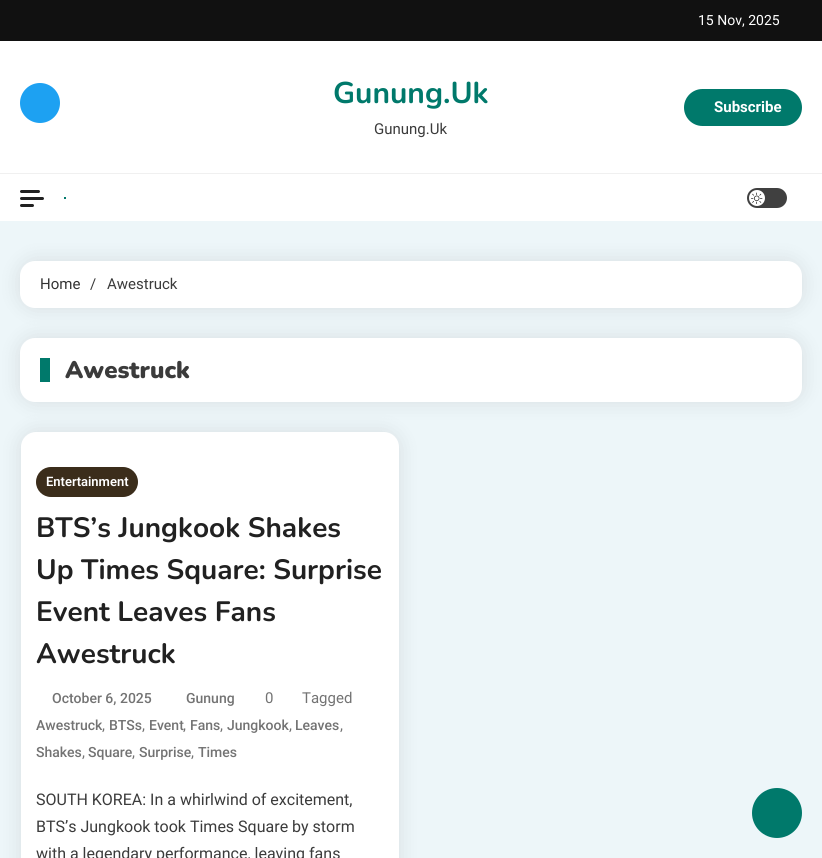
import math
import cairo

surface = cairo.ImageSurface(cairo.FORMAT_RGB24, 822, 858)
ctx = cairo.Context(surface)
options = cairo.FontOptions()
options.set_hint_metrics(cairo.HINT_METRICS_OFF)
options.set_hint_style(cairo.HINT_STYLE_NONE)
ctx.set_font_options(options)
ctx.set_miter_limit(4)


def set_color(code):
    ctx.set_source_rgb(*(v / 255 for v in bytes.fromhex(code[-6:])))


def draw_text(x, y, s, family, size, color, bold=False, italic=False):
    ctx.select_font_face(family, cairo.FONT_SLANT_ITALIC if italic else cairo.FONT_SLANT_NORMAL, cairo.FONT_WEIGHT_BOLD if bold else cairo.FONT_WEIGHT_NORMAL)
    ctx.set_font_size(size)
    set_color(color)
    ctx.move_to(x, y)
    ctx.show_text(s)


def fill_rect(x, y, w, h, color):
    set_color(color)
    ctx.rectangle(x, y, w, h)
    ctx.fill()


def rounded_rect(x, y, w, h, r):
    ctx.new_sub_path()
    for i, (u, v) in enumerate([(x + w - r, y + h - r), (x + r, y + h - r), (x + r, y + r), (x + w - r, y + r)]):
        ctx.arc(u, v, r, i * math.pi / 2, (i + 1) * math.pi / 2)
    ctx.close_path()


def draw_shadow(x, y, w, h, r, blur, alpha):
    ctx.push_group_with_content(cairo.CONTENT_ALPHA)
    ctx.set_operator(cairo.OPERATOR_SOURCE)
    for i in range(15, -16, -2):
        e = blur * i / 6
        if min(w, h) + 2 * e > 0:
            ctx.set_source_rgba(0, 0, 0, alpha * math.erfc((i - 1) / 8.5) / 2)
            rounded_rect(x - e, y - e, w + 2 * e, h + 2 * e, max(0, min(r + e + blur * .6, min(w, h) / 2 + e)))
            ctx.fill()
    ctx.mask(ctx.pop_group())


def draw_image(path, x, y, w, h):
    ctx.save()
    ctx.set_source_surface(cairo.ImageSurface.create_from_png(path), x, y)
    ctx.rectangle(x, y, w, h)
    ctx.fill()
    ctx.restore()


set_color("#edf6f9")
ctx.paint()
fill_rect(0, 0, 822, 41, "#111111")
draw_text(698, 25, "15 Nov, 2025", "Roboto", 14, "#ffffff")
fill_rect(0, 41, 822, 180, "#ffffff")
fill_rect(0, 173, 822, 1, "#f0f0f0")
set_color("#1da1f2")
ctx.new_path()
ctx.arc(40, 103, 20, 0, 2 * math.pi)
ctx.fill()
draw_text(333, 103, "Gunung.Uk", "Nunito", 30, "#00796b", bold=True)
draw_text(374, 134, "Gunung.Uk", "Roboto", 15, "#3b3b3b")
set_color("#00796b")
rounded_rect(684, 89, 118, 37, 18.5)
ctx.fill()
draw_text(714, 112, "Subscribe", "Roboto", 15, "#ffffff", bold=True)
set_color("#212121")
rounded_rect(20, 190, 20, 3, 1.5)
ctx.fill()
rounded_rect(20, 197, 24, 3, 1.5)
ctx.fill()
rounded_rect(20, 204, 14, 3, 1.5)
ctx.fill()
fill_rect(64, 197, 2, 2, "#00796b")
set_color("#404040")
rounded_rect(747, 188, 40, 20, 10)
ctx.fill()
set_color("#ffffff")
ctx.arc(757, 198, 8, 0, 2 * math.pi)
ctx.fill()
draw_image("assets/img1.png", 751, 192, 12, 12)
set_color("#000000")
draw_shadow(20, 261, 782, 47, 15, 10, 0.1)
set_color("#ffffff")
rounded_rect(20, 261, 782, 47, 15)
ctx.fill()
draw_text(40, 289, "Home", "Roboto", 15, "#333333")
draw_text(90, 289, "/", "Roboto", 15, "#3b3b3b")
draw_text(107, 289, "Awestruck", "Roboto", 15, "#3b3b3b")
set_color("#000000")
draw_shadow(20, 338, 782, 64, 15, 10, 0.1)
set_color("#ffffff")
rounded_rect(20, 338, 782, 64, 15)
ctx.fill()
fill_rect(40, 358, 10, 24, "#00796b")
draw_text(65, 378, "Awestruck", "Nunito Black", 24, "#3b3b3b")
set_color("#000000")
draw_shadow(21, 432, 378, 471, 15, 10, 0.1)
set_color("#ffffff")
rounded_rect(21, 432, 378, 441, 15)
ctx.fill()
set_color("#3b2d1b")
rounded_rect(36, 467, 102, 30, 15)
ctx.fill()
draw_text(46, 486, "Entertainment", "Roboto SemiBold", 13, "#ffffff")
draw_text(36, 537, "BTS’s Jungkook Shakes", "Nunito", 28, "#212121", bold=True)
draw_text(36, 579, "Up Times Square: Surprise", "Nunito", 28, "#212121", bold=True)
draw_text(36, 621, "Event Leaves Fans", "Nunito", 28, "#212121", bold=True)
draw_text(36, 663, "Awestruck", "Nunito", 28, "#212121", bold=True)
draw_text(302, 703, "Tagged", "Roboto", 15, "#737373")
draw_text(102, 730, ",", "Roboto", 15, "#737373")
draw_text(36, 730, "Awestruck", "Roboto Medium", 14, "#737373")
draw_text(109, 730, "BTSs", "Roboto Medium", 14, "#737373")
draw_text(142, 730, ",", "Roboto", 15, "#737373")
draw_text(149, 730, "Event", "Roboto Medium", 14, "#737373")
draw_text(183, 730, ",", "Roboto", 15, "#737373")
draw_text(190, 730, "Fans", "Roboto Medium", 14, "#737373")
draw_text(220, 730, ",", "Roboto", 15, "#737373")
draw_text(227, 730, "Jungkook", "Roboto Medium", 14, "#737373")
draw_text(289, 730, ",", "Roboto", 15, "#737373")
draw_text(340, 730, ",", "Roboto", 15, "#737373")
draw_text(295, 730, "Leaves", "Roboto Medium", 14, "#737373")
draw_text(36, 757, "Shakes", "Roboto Medium", 14, "#737373")
draw_text(82, 757, ",", "Roboto", 15, "#737373")
draw_text(88, 757, "Square", "Roboto Medium", 14, "#737373")
draw_text(132, 757, ",", "Roboto", 15, "#737373")
draw_text(139, 757, "Surprise", "Roboto Medium", 14, "#737373")
draw_text(191, 757, ",", "Roboto", 15, "#737373")
draw_text(198, 757, "Times", "Roboto Medium", 14, "#737373")
draw_text(52, 703, "October 6, 2025", "Roboto Medium", 14, "#737373")
draw_text(186, 703, "Gunung", "Roboto Medium", 14, "#737373")
draw_text(265, 703, "0", "Roboto", 15, "#737373")
draw_text(36, 805, "SOUTH KOREA: In a whirlwind of excitement,", "Roboto", 16, "#3b3b3b")
draw_text(36, 832, "BTS’s Jungkook took Times Square by storm", "Roboto", 16, "#3b3b3b")
draw_text(36, 859, "with a legendary performance, leaving fans", "Roboto", 16, "#3b3b3b")
set_color("#00796b")
ctx.new_path()
ctx.arc(777, 813, 25, 0, 2 * math.pi)
ctx.fill()
surface.write_to_png("output.png")
